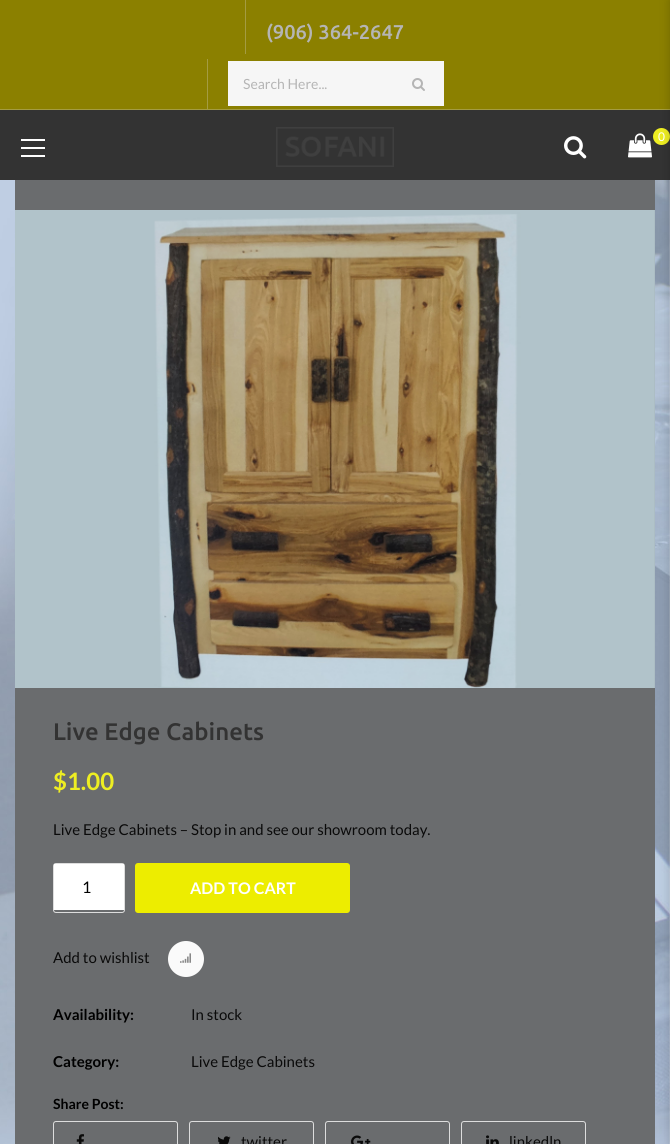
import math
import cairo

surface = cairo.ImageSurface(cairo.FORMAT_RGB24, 670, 1144)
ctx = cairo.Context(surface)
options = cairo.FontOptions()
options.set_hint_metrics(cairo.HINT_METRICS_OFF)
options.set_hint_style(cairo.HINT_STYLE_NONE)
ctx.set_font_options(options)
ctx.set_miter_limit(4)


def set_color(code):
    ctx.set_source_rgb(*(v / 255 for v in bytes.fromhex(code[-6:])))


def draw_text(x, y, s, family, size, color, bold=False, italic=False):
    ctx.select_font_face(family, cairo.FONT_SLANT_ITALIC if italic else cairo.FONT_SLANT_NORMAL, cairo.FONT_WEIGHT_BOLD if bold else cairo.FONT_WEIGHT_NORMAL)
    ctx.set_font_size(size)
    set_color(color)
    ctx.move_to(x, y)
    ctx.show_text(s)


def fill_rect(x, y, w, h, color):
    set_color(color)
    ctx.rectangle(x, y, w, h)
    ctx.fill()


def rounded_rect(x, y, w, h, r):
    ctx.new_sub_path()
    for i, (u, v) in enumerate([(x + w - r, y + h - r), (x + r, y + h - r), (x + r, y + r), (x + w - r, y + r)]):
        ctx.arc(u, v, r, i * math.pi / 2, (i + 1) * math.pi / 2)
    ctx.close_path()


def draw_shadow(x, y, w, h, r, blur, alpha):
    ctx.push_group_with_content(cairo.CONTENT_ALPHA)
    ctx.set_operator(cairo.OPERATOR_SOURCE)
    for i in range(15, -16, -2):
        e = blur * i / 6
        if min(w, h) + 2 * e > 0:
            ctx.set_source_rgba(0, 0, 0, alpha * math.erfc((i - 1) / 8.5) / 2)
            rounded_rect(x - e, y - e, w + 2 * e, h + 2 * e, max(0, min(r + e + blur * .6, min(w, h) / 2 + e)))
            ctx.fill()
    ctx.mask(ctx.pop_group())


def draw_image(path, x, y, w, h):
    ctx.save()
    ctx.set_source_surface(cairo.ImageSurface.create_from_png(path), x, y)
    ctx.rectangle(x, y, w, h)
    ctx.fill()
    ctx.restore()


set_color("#ffffff")
ctx.paint()
draw_image("assets/img1.png", 0, 180, 670, 964)
fill_rect(0, 0, 670, 109, "#8b8000")
fill_rect(0, 109, 670, 1, "#a49c42")
fill_rect(0, 110, 670, 70, "#333333")
set_color("#eeee22")
ctx.arc(661.5, 136.5, 8.5, 0, 2 * math.pi)
ctx.fill()
fill_rect(15, 180, 640, 964, "#6a6c6e")
draw_image("assets/img6.png", 15, 210, 640, 478)
ctx.set_source_rgba(0, 0, 0, 0.04)
ctx.rectangle(15, 210, 640, 478)
ctx.fill()
set_color("#000000")
draw_shadow(670, 0, 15, 1144, 0, 5, 0.2)
fill_rect(245, 0, 1, 54, "#a49c42")
draw_text(266, 39, "(906) 364-2647", "Ubuntu Medium", 20, "#b5b5b5")
fill_rect(207, 59, 1, 50, "#a49c42")
fill_rect(228, 61, 216, 45, "#f6f6f6")
draw_text(243, 89, "Search Here...", "Lato", 14, "#b5b5b5")
draw_image("assets/img2.png", 412, 78, 13, 13)
draw_image("assets/img3.png", 276, 127, 118, 40)
draw_image("assets/img4.png", 564, 136, 23, 23)
draw_image("assets/img5.png", 628, 133, 24, 25)
draw_text(658, 141, "0", "Lato", 12, "#ffffff")
fill_rect(21, 139, 24, 2, "#ffffff")
fill_rect(21, 147, 24, 2, "#ffffff")
fill_rect(21, 155, 24, 2, "#ffffff")
draw_text(53, 740, "Live Edge Cabinets", "Ubuntu Medium", 24, "#333333")
draw_text(53, 790, "$1.00", "Lato", 24, "#eeee22", bold=True)
draw_text(53, 835, "Live Edge Cabinets – Stop in and see our showroom today.", "Lato", 15, "#0a0a0a")
rounded_rect(53.5, 863.5, 71, 49, 2.5)
set_color("#dddddd")
ctx.set_line_width(1)
ctx.stroke()
fill_rect(54, 864, 70, 46, "#ffffff")
draw_text(82, 893, "1", "Lato", 16, "#000000")
set_color("#eded00")
rounded_rect(135, 863, 215, 50, 3)
ctx.fill()
draw_text(190, 894, "ADD TO CART", "Lato", 16, "#ffffff", bold=True)
draw_text(53, 963, "Add to wishlist", "Lato", 15, "#0a0a0a")
set_color("#fafafa")
ctx.new_path()
ctx.arc(186, 959, 18, 0, 2 * math.pi)
ctx.fill()
draw_image("assets/img7.png", 180, 953, 11, 10)
draw_text(53, 1020, "Availability:", "Lato", 15, "#000000", bold=True)
draw_text(191, 1020, "In stock", "Lato", 15, "#0a0a0a")
draw_text(53, 1067, "Category:", "Lato", 15, "#000000", bold=True)
draw_text(191, 1067, "Live Edge Cabinets", "Lato", 15, "#0a0a0a")
draw_text(53, 1109, "Share Post:", "Lato", 14, "#000000", bold=True)
rounded_rect(53.5, 1121.5, 124, 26, 2.5)
set_color("#dddddd")
ctx.stroke()
draw_image("assets/img8.png", 76, 1134, 8, 10)
rounded_rect(189.5, 1121.5, 124, 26, 2.5)
ctx.stroke()
draw_image("assets/img9.png", 218, 1136, 13, 8)
draw_text(241, 1147, "twitter", "Lato", 15, "#0a0a0a")
rounded_rect(325.5, 1121.5, 124, 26, 2.5)
set_color("#dddddd")
ctx.stroke()
draw_image("assets/img10.png", 351, 1135, 20, 9)
rounded_rect(461.5, 1121.5, 124, 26, 2.5)
ctx.stroke()
draw_image("assets/img11.png", 486, 1135, 13, 9)
draw_text(509, 1147, "linkedln", "Lato", 15, "#0a0a0a")
surface.write_to_png("output.png")
